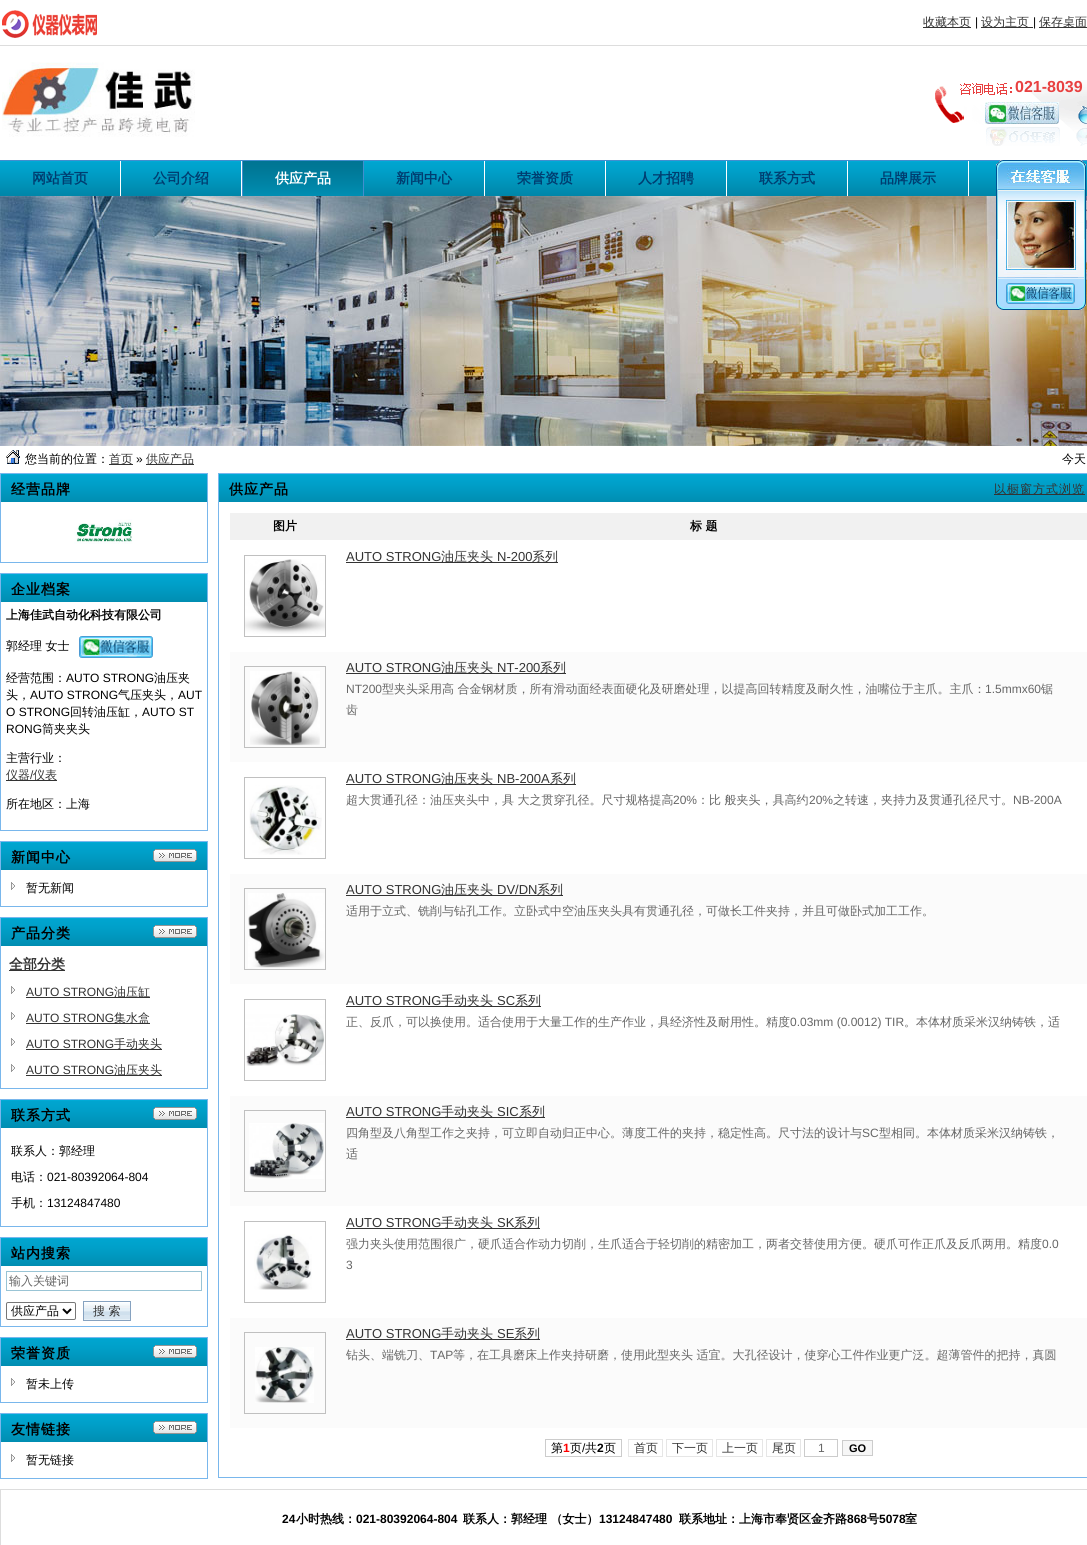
import math
import cairo

surface = cairo.ImageSurface(cairo.FORMAT_RGB24, 1087, 1545)
ctx = cairo.Context(surface)
options = cairo.FontOptions()
options.set_hint_metrics(cairo.HINT_METRICS_OFF)
options.set_hint_style(cairo.HINT_STYLE_NONE)
ctx.set_font_options(options)
ctx.set_miter_limit(4)


def set_color(code):
    ctx.set_source_rgb(*(v / 255 for v in bytes.fromhex(code[-6:])))


def draw_text(x, y, s, family, size, color, bold=False, italic=False):
    ctx.select_font_face(family, cairo.FONT_SLANT_ITALIC if italic else cairo.FONT_SLANT_NORMAL, cairo.FONT_WEIGHT_BOLD if bold else cairo.FONT_WEIGHT_NORMAL)
    ctx.set_font_size(size)
    set_color(color)
    ctx.move_to(x, y)
    ctx.show_text(s)


def draw_spaced(x, y, s, letter, word):
    ctx.move_to(x, y)
    for ch in s:
        ctx.show_text(ch)
        ctx.rel_move_to(letter + word * (ch == ' '), 0)


def fill_rect(x, y, w, h, color):
    set_color(color)
    ctx.rectangle(x, y, w, h)
    ctx.fill()


def rounded_rect(x, y, w, h, r):
    ctx.new_sub_path()
    for i, (u, v) in enumerate([(x + w - r, y + h - r), (x + r, y + h - r), (x + r, y + r), (x + w - r, y + r)]):
        ctx.arc(u, v, r, i * math.pi / 2, (i + 1) * math.pi / 2)
    ctx.close_path()


def draw_image(path, x, y, w, h):
    ctx.save()
    ctx.set_source_surface(cairo.ImageSurface.create_from_png(path), x, y)
    ctx.rectangle(x, y, w, h)
    ctx.fill()
    ctx.restore()


set_color("#ffffff")
ctx.paint()
fill_rect(0, 45, 1087, 1, "#dddddd")
draw_image("assets/img1.png", 2, 10, 95, 28)
fill_rect(923, 27, 48, 1, "#333333")
draw_text(923, 26, "收藏本页", "WenQuanYi Zen Hei Medium", 12, "#333333")
draw_text(975, 26, "|", "Liberation Sans", 12, "#000000")
fill_rect(981, 27, 52, 1, "#333333")
draw_text(981, 26, "设为主页", "WenQuanYi Zen Hei Medium", 12, "#333333")
draw_text(1033, 26, "|", "Liberation Sans", 12, "#000000")
fill_rect(1039, 27, 48, 1, "#333333")
draw_text(1039, 26, "保存桌面", "WenQuanYi Zen Hei Medium", 12, "#333333")
draw_image("assets/img2.png", 2, 62, 193, 75)
draw_image("assets/img3.png", 935, 80, 152, 66)
draw_text(1015, 92, "021-8039", "Liberation Sans", 16, "#e84040", bold=True)
draw_image("assets/img4.png", 985, 102, 74, 22)
draw_image("assets/img5.png", 1078, 106, 9, 18)
draw_image("assets/img6.png", 0, 161, 1087, 35)
fill_rect(0, 160, 1087, 1, "#438ece")
fill_rect(120, 161, 1, 35, "#ffffff")
draw_text(32, 183, "网站首页", "WenQuanYi Zen Hei", 14, "#003d70", bold=True)
fill_rect(241, 161, 1, 35, "#ffffff")
draw_text(153, 183, "公司介绍", "WenQuanYi Zen Hei", 14, "#003d70", bold=True)
draw_image("assets/img7.png", 243, 161, 120, 35)
fill_rect(363, 161, 1, 35, "#438ece")
fill_rect(242, 161, 1, 35, "#438ece")
draw_text(275, 183, "供应产品", "WenQuanYi Zen Hei", 14, "#ffffff", bold=True)
fill_rect(484, 161, 1, 35, "#ffffff")
draw_text(396, 183, "新闻中心", "WenQuanYi Zen Hei", 14, "#003d70", bold=True)
fill_rect(605, 161, 1, 35, "#ffffff")
draw_text(517, 183, "荣誉资质", "WenQuanYi Zen Hei", 14, "#003d70", bold=True)
fill_rect(726, 161, 1, 35, "#ffffff")
draw_text(638, 183, "人才招聘", "WenQuanYi Zen Hei", 14, "#003d70", bold=True)
fill_rect(847, 161, 1, 35, "#ffffff")
draw_text(759, 183, "联系方式", "WenQuanYi Zen Hei", 14, "#003d70", bold=True)
fill_rect(968, 161, 1, 35, "#ffffff")
draw_text(880, 183, "品牌展示", "WenQuanYi Zen Hei", 14, "#003d70", bold=True)
draw_image("assets/img13.png", 0, 196, 1087, 250)
draw_image("assets/img8.png", 996, 160, 8, 150)
draw_image("assets/img9.png", 1004, 160, 74, 150)
draw_image("assets/img10.png", 1006, 200, 70, 70)
draw_image("assets/img11.png", 1006, 283, 69, 21)
draw_image("assets/img12.png", 1078, 160, 8, 150)
draw_image("assets/img14.png", 6, 450, 14, 14)
draw_text(25, 463, "您当前的位置：", "WenQuanYi Zen Hei Medium", 12, "#000000")
fill_rect(109, 464, 24, 1, "#333333")
draw_text(109, 463, "首页", "WenQuanYi Zen Hei Medium", 12, "#333333")
draw_text(136, 463, "»", "Liberation Sans", 12, "#000000")
fill_rect(146, 464, 48, 1, "#333333")
draw_text(146, 463, "供应产品", "WenQuanYi Zen Hei Medium", 12, "#333333")
draw_text(1062, 463, "今天", "WenQuanYi Zen Hei Medium", 12, "#000000")
draw_image("assets/img15.png", 1, 474, 206, 28)
fill_rect(0, 473, 208, 1, "#79b7ec")
fill_rect(207, 473, 1, 90, "#79b7ec")
fill_rect(0, 473, 1, 29, "#79b7ec")
ctx.select_font_face("WenQuanYi Zen Hei", cairo.FONT_SLANT_NORMAL, cairo.FONT_WEIGHT_BOLD)
ctx.set_font_size(14)
set_color("#000000")
draw_spaced(11, 494, "经营品牌", 1, 0)
fill_rect(0, 562, 208, 1, "#79b7ec")
fill_rect(0, 502, 1, 61, "#79b7ec")
draw_image("assets/img16.png", 74, 519, 59, 25)
draw_image("assets/img15.png", 1, 574, 206, 28)
fill_rect(0, 573, 208, 1, "#79b7ec")
fill_rect(207, 573, 1, 258, "#79b7ec")
fill_rect(0, 573, 1, 29, "#79b7ec")
set_color("#000000")
draw_spaced(11, 594, "企业档案", 1, 0)
fill_rect(0, 830, 208, 1, "#79b7ec")
fill_rect(0, 602, 1, 229, "#79b7ec")
draw_text(6, 619, "上海佳武自动化科技有限公司", "WenQuanYi Zen Hei", 12, "#000000", bold=True)
draw_text(6, 650, "郭经理 女士", "WenQuanYi Zen Hei Medium", 12, "#000000")
draw_image("assets/img17.png", 79, 636, 74, 22)
draw_text(6, 682, "经营范围：", "WenQuanYi Zen Hei Medium", 12, "#000000")
draw_text(66, 682, "AUTO STRONG", "Liberation Sans", 12, "#000000")
draw_text(154, 682, "油压夹", "WenQuanYi Zen Hei Medium", 12, "#000000")
draw_text(6, 699, "头，", "WenQuanYi Zen Hei Medium", 12, "#000000")
draw_text(30, 699, "AUTO STRONG", "Liberation Sans", 12, "#000000")
draw_text(118, 699, "气压夹头，", "WenQuanYi Zen Hei Medium", 12, "#000000")
draw_text(178, 699, "AUT", "Liberation Sans", 12, "#000000")
draw_text(6, 716, "O STRONG", "Liberation Sans", 12, "#000000")
draw_text(70, 716, "回转油压缸，", "WenQuanYi Zen Hei Medium", 12, "#000000")
draw_text(142, 716, "AUTO ST", "Liberation Sans", 12, "#000000")
draw_text(6, 733, "RONG", "Liberation Sans", 12, "#000000")
draw_text(42, 733, "筒夹夹头", "WenQuanYi Zen Hei Medium", 12, "#000000")
draw_text(6, 762, "主营行业：", "WenQuanYi Zen Hei Medium", 12, "#000000")
fill_rect(6, 780, 51, 1, "#333333")
draw_text(6, 779, "仪器", "WenQuanYi Zen Hei Medium", 12, "#333333")
draw_text(30, 779, "/", "Liberation Sans", 12, "#333333")
draw_text(33, 779, "仪表", "WenQuanYi Zen Hei Medium", 12, "#333333")
draw_text(6, 808, "所在地区：上海", "WenQuanYi Zen Hei Medium", 12, "#000000")
draw_image("assets/img15.png", 1, 842, 206, 28)
fill_rect(0, 841, 208, 1, "#79b7ec")
fill_rect(207, 841, 1, 66, "#79b7ec")
fill_rect(0, 841, 1, 29, "#79b7ec")
ctx.select_font_face("WenQuanYi Zen Hei", cairo.FONT_SLANT_NORMAL, cairo.FONT_WEIGHT_BOLD)
ctx.set_font_size(14)
set_color("#000000")
draw_spaced(11, 862, "新闻中心", 1, 0)
draw_image("assets/img18.png", 153, 849, 44, 13)
fill_rect(0, 906, 208, 1, "#79b7ec")
fill_rect(0, 870, 1, 37, "#79b7ec")
draw_image("assets/img19.png", 11, 882, 4, 8)
draw_text(26, 892, "暂无新闻", "WenQuanYi Zen Hei Medium", 12, "#000000")
draw_image("assets/img15.png", 1, 918, 206, 28)
fill_rect(0, 917, 208, 1, "#79b7ec")
fill_rect(207, 917, 1, 172, "#79b7ec")
fill_rect(0, 917, 1, 29, "#79b7ec")
ctx.select_font_face("WenQuanYi Zen Hei", cairo.FONT_SLANT_NORMAL, cairo.FONT_WEIGHT_BOLD)
ctx.set_font_size(14)
set_color("#000000")
draw_spaced(11, 938, "产品分类", 1, 0)
draw_image("assets/img18.png", 153, 925, 44, 13)
fill_rect(0, 1088, 208, 1, "#79b7ec")
fill_rect(0, 946, 1, 143, "#79b7ec")
fill_rect(9, 970, 56, 1, "#333333")
draw_text(9, 969, "全部分类", "WenQuanYi Zen Hei", 14, "#333333", bold=True)
draw_image("assets/img19.png", 11, 986, 4, 8)
draw_text(26, 996, "AUTO STRONG", "Liberation Sans", 12, "#333333")
fill_rect(26, 997, 124, 1, "#333333")
draw_text(114, 996, "油压缸", "WenQuanYi Zen Hei Medium", 12, "#333333")
draw_image("assets/img19.png", 11, 1012, 4, 8)
draw_text(26, 1022, "AUTO STRONG", "Liberation Sans", 12, "#333333")
fill_rect(26, 1023, 124, 1, "#333333")
draw_text(114, 1022, "集水盒", "WenQuanYi Zen Hei Medium", 12, "#333333")
draw_image("assets/img19.png", 11, 1038, 4, 8)
draw_text(26, 1048, "AUTO STRONG", "Liberation Sans", 12, "#333333")
fill_rect(26, 1049, 136, 1, "#333333")
draw_text(114, 1048, "手动夹头", "WenQuanYi Zen Hei Medium", 12, "#333333")
draw_image("assets/img19.png", 11, 1064, 4, 8)
draw_text(26, 1074, "AUTO STRONG", "Liberation Sans", 12, "#333333")
fill_rect(26, 1075, 136, 1, "#333333")
draw_text(114, 1074, "油压夹头", "WenQuanYi Zen Hei Medium", 12, "#333333")
draw_image("assets/img15.png", 1, 1100, 206, 28)
fill_rect(0, 1099, 208, 1, "#79b7ec")
fill_rect(207, 1099, 1, 128, "#79b7ec")
fill_rect(0, 1099, 1, 29, "#79b7ec")
ctx.select_font_face("WenQuanYi Zen Hei", cairo.FONT_SLANT_NORMAL, cairo.FONT_WEIGHT_BOLD)
ctx.set_font_size(14)
set_color("#000000")
draw_spaced(11, 1120, "联系方式", 1, 0)
draw_image("assets/img18.png", 153, 1107, 44, 13)
fill_rect(0, 1226, 208, 1, "#79b7ec")
fill_rect(0, 1128, 1, 99, "#79b7ec")
draw_text(11, 1155, "联系人：郭经理", "WenQuanYi Zen Hei Medium", 12, "#000000")
draw_text(11, 1181, "电话：", "WenQuanYi Zen Hei Medium", 12, "#000000")
draw_text(47, 1181, "021-80392064-804", "Liberation Sans", 12, "#000000")
draw_text(11, 1207, "手机：", "WenQuanYi Zen Hei Medium", 12, "#000000")
draw_text(47, 1207, "13124847480", "Liberation Sans", 12, "#000000")
draw_image("assets/img15.png", 1, 1238, 206, 28)
fill_rect(0, 1237, 208, 1, "#79b7ec")
fill_rect(207, 1237, 1, 90, "#79b7ec")
fill_rect(0, 1237, 1, 29, "#79b7ec")
ctx.select_font_face("WenQuanYi Zen Hei", cairo.FONT_SLANT_NORMAL, cairo.FONT_WEIGHT_BOLD)
ctx.set_font_size(14)
set_color("#000000")
draw_spaced(11, 1258, "站内搜索", 1, 0)
fill_rect(0, 1326, 208, 1, "#79b7ec")
fill_rect(0, 1266, 1, 61, "#79b7ec")
ctx.rectangle(6.5, 1271.5, 195, 19)
set_color("#99c4d5")
ctx.set_line_width(1)
ctx.stroke()
draw_text(9, 1285, "输入关键词", "WenQuanYi Zen Hei Medium", 12, "#666666")
rounded_rect(6.5, 1302.5, 69, 17, 1.5)
set_color("#767676")
ctx.stroke()
ctx.new_path()
ctx.move_to(63, 1309)
ctx.line_to(67, 1313)
ctx.line_to(71, 1309)
set_color("#000000")
ctx.set_line_width(2)
ctx.stroke()
draw_text(11, 1315, "供应产品", "WenQuanYi Zen Hei Medium", 12, "#000000")
draw_image("assets/img20.png", 84, 1303, 46, 17)
ctx.rectangle(83.5, 1301.5, 47, 19)
set_color("#86a2c0")
ctx.set_line_width(1)
ctx.stroke()
draw_text(93, 1315, "搜 索", "WenQuanYi Zen Hei Medium", 12, "#333333")
draw_image("assets/img15.png", 1, 1338, 206, 28)
fill_rect(0, 1337, 208, 1, "#79b7ec")
fill_rect(207, 1337, 1, 66, "#79b7ec")
fill_rect(0, 1337, 1, 29, "#79b7ec")
ctx.select_font_face("WenQuanYi Zen Hei", cairo.FONT_SLANT_NORMAL, cairo.FONT_WEIGHT_BOLD)
ctx.set_font_size(14)
set_color("#000000")
draw_spaced(11, 1358, "荣誉资质", 1, 0)
draw_image("assets/img18.png", 153, 1345, 44, 13)
fill_rect(0, 1402, 208, 1, "#79b7ec")
fill_rect(0, 1366, 1, 37, "#79b7ec")
draw_image("assets/img19.png", 11, 1378, 4, 8)
draw_text(26, 1388, "暂未上传", "WenQuanYi Zen Hei Medium", 12, "#000000")
draw_image("assets/img15.png", 1, 1414, 206, 28)
fill_rect(0, 1413, 208, 1, "#79b7ec")
fill_rect(207, 1413, 1, 66, "#79b7ec")
fill_rect(0, 1413, 1, 29, "#79b7ec")
ctx.select_font_face("WenQuanYi Zen Hei", cairo.FONT_SLANT_NORMAL, cairo.FONT_WEIGHT_BOLD)
ctx.set_font_size(14)
set_color("#000000")
draw_spaced(11, 1434, "友情链接", 1, 0)
draw_image("assets/img18.png", 153, 1421, 44, 13)
fill_rect(0, 1478, 208, 1, "#79b7ec")
fill_rect(0, 1442, 1, 37, "#79b7ec")
draw_image("assets/img19.png", 11, 1454, 4, 8)
draw_text(26, 1464, "暂无链接", "WenQuanYi Zen Hei Medium", 12, "#000000")
draw_image("assets/img21.png", 219, 474, 868, 28)
fill_rect(218, 473, 869, 1, "#79b7ec")
fill_rect(218, 473, 1, 29, "#79b7ec")
ctx.select_font_face("WenQuanYi Zen Hei", cairo.FONT_SLANT_NORMAL, cairo.FONT_WEIGHT_BOLD)
ctx.set_font_size(14)
set_color("#000000")
draw_spaced(229, 494, "供应产品", 1, 0)
fill_rect(994, 494, 91, 1, "#333333")
ctx.select_font_face("WenQuanYi Zen Hei Medium")
ctx.set_font_size(12)
draw_spaced(994, 493, "以橱窗方式浏览", 1, 0)
fill_rect(218, 1477, 869, 1, "#79b7ec")
fill_rect(218, 502, 1, 976, "#79b7ec")
fill_rect(230, 513, 857, 27, "#f1f1f1")
draw_text(273, 530, "图片", "WenQuanYi Zen Hei", 12, "#000000", bold=True)
draw_text(690, 530, "标 题", "WenQuanYi Zen Hei", 12, "#000000", bold=True)
ctx.rectangle(244.5, 555.5, 81, 81)
set_color("#c0c0c0")
ctx.stroke()
draw_image("assets/img22.png", 245, 559, 80, 75)
draw_text(346, 561, "AUTO STRONG", "Liberation Sans", 13, "#333333")
fill_rect(346, 562, 212, 1, "#333333")
draw_text(441, 561, "油压夹头", "WenQuanYi Zen Hei Medium", 13, "#333333")
draw_text(497, 561, "N-200", "Liberation Sans", 13, "#333333")
draw_text(532, 561, "系列", "WenQuanYi Zen Hei Medium", 13, "#333333")
fill_rect(230, 652, 857, 110, "#fbfbfb")
ctx.rectangle(244.5, 666.5, 81, 81)
set_color("#c0c0c0")
ctx.stroke()
draw_image("assets/img23.png", 250, 671, 70, 75)
draw_text(346, 672, "AUTO STRONG", "Liberation Sans", 13, "#333333")
fill_rect(346, 673, 220, 1, "#333333")
draw_text(441, 672, "油压夹头", "WenQuanYi Zen Hei Medium", 13, "#333333")
draw_text(497, 672, "NT-200", "Liberation Sans", 13, "#333333")
draw_text(540, 672, "系列", "WenQuanYi Zen Hei Medium", 13, "#333333")
draw_text(346, 693, "NT200", "Liberation Sans", 12, "#666666")
draw_text(382, 693, "型夹头采用高 合金钢材质，所有滑动面经表面硬化及研磨处理，以提高回转精度及耐久性，油嘴位于主爪。主爪：", "WenQuanYi Zen Hei Medium", 12, "#666666")
draw_text(985, 693, "1.5mmx60", "Liberation Sans", 12, "#666666")
draw_text(1041, 693, "锯", "WenQuanYi Zen Hei Medium", 12, "#666666")
draw_text(346, 714, "齿", "WenQuanYi Zen Hei Medium", 12, "#666666")
ctx.rectangle(244.5, 777.5, 81, 81)
set_color("#c0c0c0")
ctx.stroke()
draw_image("assets/img24.png", 249, 785, 73, 70)
draw_text(346, 783, "AUTO STRONG", "Liberation Sans", 13, "#333333")
fill_rect(346, 784, 230, 1, "#333333")
draw_text(441, 783, "油压夹头", "WenQuanYi Zen Hei Medium", 13, "#333333")
draw_text(497, 783, "NB-200A", "Liberation Sans", 13, "#333333")
draw_text(550, 783, "系列", "WenQuanYi Zen Hei Medium", 13, "#333333")
draw_text(346, 804, "超大贯通孔径：油压夹头中，具 大之贯穿孔径。尺寸规格提高", "WenQuanYi Zen Hei Medium", 12, "#666666")
draw_text(673, 804, "20%", "Liberation Sans", 12, "#666666")
draw_text(697, 804, "：比 般夹头，具高约", "WenQuanYi Zen Hei Medium", 12, "#666666")
draw_text(809, 804, "20%", "Liberation Sans", 12, "#666666")
draw_text(833, 804, "之转速，夹持力及贯通孔径尺寸。", "WenQuanYi Zen Hei Medium", 12, "#666666")
draw_text(1013, 804, "NB-200A", "Liberation Sans", 12, "#666666")
fill_rect(230, 874, 857, 110, "#fbfbfb")
ctx.rectangle(244.5, 888.5, 81, 81)
set_color("#c0c0c0")
ctx.stroke()
draw_image("assets/img25.png", 248, 893, 77, 75)
draw_text(346, 894, "AUTO STRONG", "Liberation Sans", 13, "#333333")
fill_rect(346, 895, 217, 1, "#333333")
draw_text(441, 894, "油压夹头", "WenQuanYi Zen Hei Medium", 13, "#333333")
draw_text(497, 894, "DV/DN", "Liberation Sans", 13, "#333333")
draw_text(537, 894, "系列", "WenQuanYi Zen Hei Medium", 13, "#333333")
draw_text(346, 915, "适用于立式、铣削与钻孔工作。立卧式中空油压夹头具有贯通孔径，可做长工件夹持，并且可做卧式加工工作。", "WenQuanYi Zen Hei Medium", 12, "#666666")
ctx.rectangle(244.5, 999.5, 81, 81)
set_color("#c0c0c0")
ctx.stroke()
draw_image("assets/img26.png", 245, 1014, 80, 52)
draw_text(346, 1005, "AUTO STRONG", "Liberation Sans", 13, "#333333")
fill_rect(346, 1006, 195, 1, "#333333")
draw_text(441, 1005, "手动夹头", "WenQuanYi Zen Hei Medium", 13, "#333333")
draw_text(497, 1005, "SC", "Liberation Sans", 13, "#333333")
draw_text(515, 1005, "系列", "WenQuanYi Zen Hei Medium", 13, "#333333")
draw_text(346, 1026, "正、反爪，可以换使用。适合使用于大量工作的生产作业，具经济性及耐用性。精度", "WenQuanYi Zen Hei Medium", 12, "#666666")
draw_text(790, 1026, "0.03mm (0.0012) TIR", "Liberation Sans", 12, "#666666")
draw_text(904, 1026, "。本体材质采米汉纳铸铁，适", "WenQuanYi Zen Hei Medium", 12, "#666666")
fill_rect(230, 1096, 857, 110, "#fbfbfb")
ctx.rectangle(244.5, 1110.5, 81, 81)
set_color("#c0c0c0")
ctx.stroke()
draw_image("assets/img27.png", 249, 1123, 75, 56)
draw_text(346, 1116, "AUTO STRONG", "Liberation Sans", 13, "#333333")
fill_rect(346, 1117, 199, 1, "#333333")
draw_text(441, 1116, "手动夹头", "WenQuanYi Zen Hei Medium", 13, "#333333")
draw_text(497, 1116, "SIC", "Liberation Sans", 13, "#333333")
draw_text(519, 1116, "系列", "WenQuanYi Zen Hei Medium", 13, "#333333")
draw_text(346, 1137, "四角型及八角型工作之夹持，可立即自动归正中心。薄度工件的夹持，稳定性高。尺寸法的设计与", "WenQuanYi Zen Hei Medium", 12, "#666666")
draw_text(862, 1137, "SC", "Liberation Sans", 12, "#666666")
draw_text(879, 1137, "型相同。本体材质采米汉纳铸铁，", "WenQuanYi Zen Hei Medium", 12, "#666666")
draw_text(346, 1158, "适", "WenQuanYi Zen Hei Medium", 12, "#666666")
ctx.rectangle(244.5, 1221.5, 81, 81)
set_color("#c0c0c0")
ctx.stroke()
draw_image("assets/img28.png", 254, 1234, 58, 56)
draw_text(346, 1227, "AUTO STRONG", "Liberation Sans", 13, "#333333")
fill_rect(346, 1228, 194, 1, "#333333")
draw_text(441, 1227, "手动夹头", "WenQuanYi Zen Hei Medium", 13, "#333333")
draw_text(497, 1227, "SK", "Liberation Sans", 13, "#333333")
draw_text(514, 1227, "系列", "WenQuanYi Zen Hei Medium", 13, "#333333")
draw_text(346, 1248, "强力夹头使用范围很广，硬爪适合作动力切削，生爪适合于轻切削的精密加工，两者交替使用方便。硬爪可作正爪及反爪两用。精度", "WenQuanYi Zen Hei Medium", 12, "#666666")
draw_text(1042, 1248, "0.0", "Liberation Sans", 12, "#666666")
draw_text(346, 1269, "3", "Liberation Sans", 12, "#666666")
fill_rect(230, 1318, 857, 110, "#fbfbfb")
ctx.rectangle(244.5, 1332.5, 81, 81)
set_color("#c0c0c0")
ctx.stroke()
draw_image("assets/img29.png", 255, 1347, 59, 56)
draw_text(346, 1338, "AUTO STRONG", "Liberation Sans", 13, "#333333")
fill_rect(346, 1339, 194, 1, "#333333")
draw_text(441, 1338, "手动夹头", "WenQuanYi Zen Hei Medium", 13, "#333333")
draw_text(497, 1338, "SE", "Liberation Sans", 13, "#333333")
draw_text(514, 1338, "系列", "WenQuanYi Zen Hei Medium", 13, "#333333")
draw_text(346, 1359, "钻头、端铣刀、", "WenQuanYi Zen Hei Medium", 12, "#666666")
draw_text(430, 1359, "TAP", "Liberation Sans", 12, "#666666")
draw_text(453, 1359, "等，在工具磨床上作夹持研磨，使用此型夹头 适宜。大孔径设计，使穿心工件作业更广泛。超薄管件的把持，真圆", "WenQuanYi Zen Hei Medium", 12, "#666666")
draw_text(551, 1452, "第", "WenQuanYi Zen Hei Medium", 12, "#000000")
fill_rect(545, 1456, 59, 1, "#cccccc")
fill_rect(545, 1439, 77, 1, "#cccccc")
fill_rect(545, 1439, 1, 18, "#cccccc")
draw_text(563, 1452, "1", "Liberation Sans", 12, "#ff0000", bold=True)
draw_text(570, 1452, "页", "WenQuanYi Zen Hei Medium", 12, "#000000")
draw_text(582, 1452, "/", "Liberation Sans", 12, "#000000")
draw_text(585, 1452, "共", "WenQuanYi Zen Hei Medium", 12, "#000000")
draw_text(597, 1452, "2", "Liberation Sans", 12, "#000000", bold=True)
draw_text(604, 1452, "页", "WenQuanYi Zen Hei Medium", 12, "#000000")
fill_rect(621, 1439, 1, 18, "#cccccc")
fill_rect(604, 1456, 18, 1, "#cccccc")
ctx.rectangle(628.5, 1439.5, 34, 17)
set_color("#e6e6e6")
ctx.stroke()
draw_text(634, 1452, "首页", "WenQuanYi Zen Hei Medium", 12, "#333333")
ctx.rectangle(666.5, 1439.5, 46, 17)
set_color("#e6e6e6")
ctx.stroke()
draw_text(672, 1452, "下一页", "WenQuanYi Zen Hei Medium", 12, "#333333")
ctx.rectangle(716.5, 1439.5, 46, 17)
set_color("#e6e6e6")
ctx.stroke()
draw_text(722, 1452, "上一页", "WenQuanYi Zen Hei Medium", 12, "#333333")
ctx.rectangle(766.5, 1439.5, 34, 17)
set_color("#e6e6e6")
ctx.stroke()
draw_text(772, 1452, "尾页", "WenQuanYi Zen Hei Medium", 12, "#333333")
ctx.rectangle(804.5, 1439.5, 33, 17)
set_color("#cccccc")
ctx.stroke()
draw_text(818, 1452, "1", "Liberation Sans", 12, "#666666")
set_color("#f6f6f6")
ctx.rectangle(842.5, 1440.5, 30, 15)
ctx.fill_preserve()
set_color("#cccccc")
ctx.stroke()
draw_text(849, 1452, "GO", "Liberation Sans", 11, "#000000", bold=True)
ctx.rectangle(0.5, 1489.5, 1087, 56)
set_color("#dddddd")
ctx.stroke()
draw_text(282, 1523, "24", "Liberation Sans", 12, "#000000", bold=True)
draw_text(296, 1523, "小时热线：", "WenQuanYi Zen Hei", 12, "#000000", bold=True)
draw_text(356, 1523, "021-80392064-804", "Liberation Sans", 12, "#000000", bold=True)
draw_text(463, 1523, "联系人：郭经理 （女士）", "WenQuanYi Zen Hei", 12, "#000000", bold=True)
draw_text(599, 1523, "13124847480", "Liberation Sans", 12, "#000000", bold=True)
draw_text(679, 1523, "联系地址：上海市奉贤区金齐路", "WenQuanYi Zen Hei", 12, "#000000", bold=True)
draw_text(847, 1523, "868", "Liberation Sans", 12, "#000000", bold=True)
draw_text(867, 1523, "号", "WenQuanYi Zen Hei", 12, "#000000", bold=True)
draw_text(879, 1523, "5078", "Liberation Sans", 12, "#000000", bold=True)
draw_text(905, 1523, "室", "WenQuanYi Zen Hei", 12, "#000000", bold=True)
surface.write_to_png("output.png")
